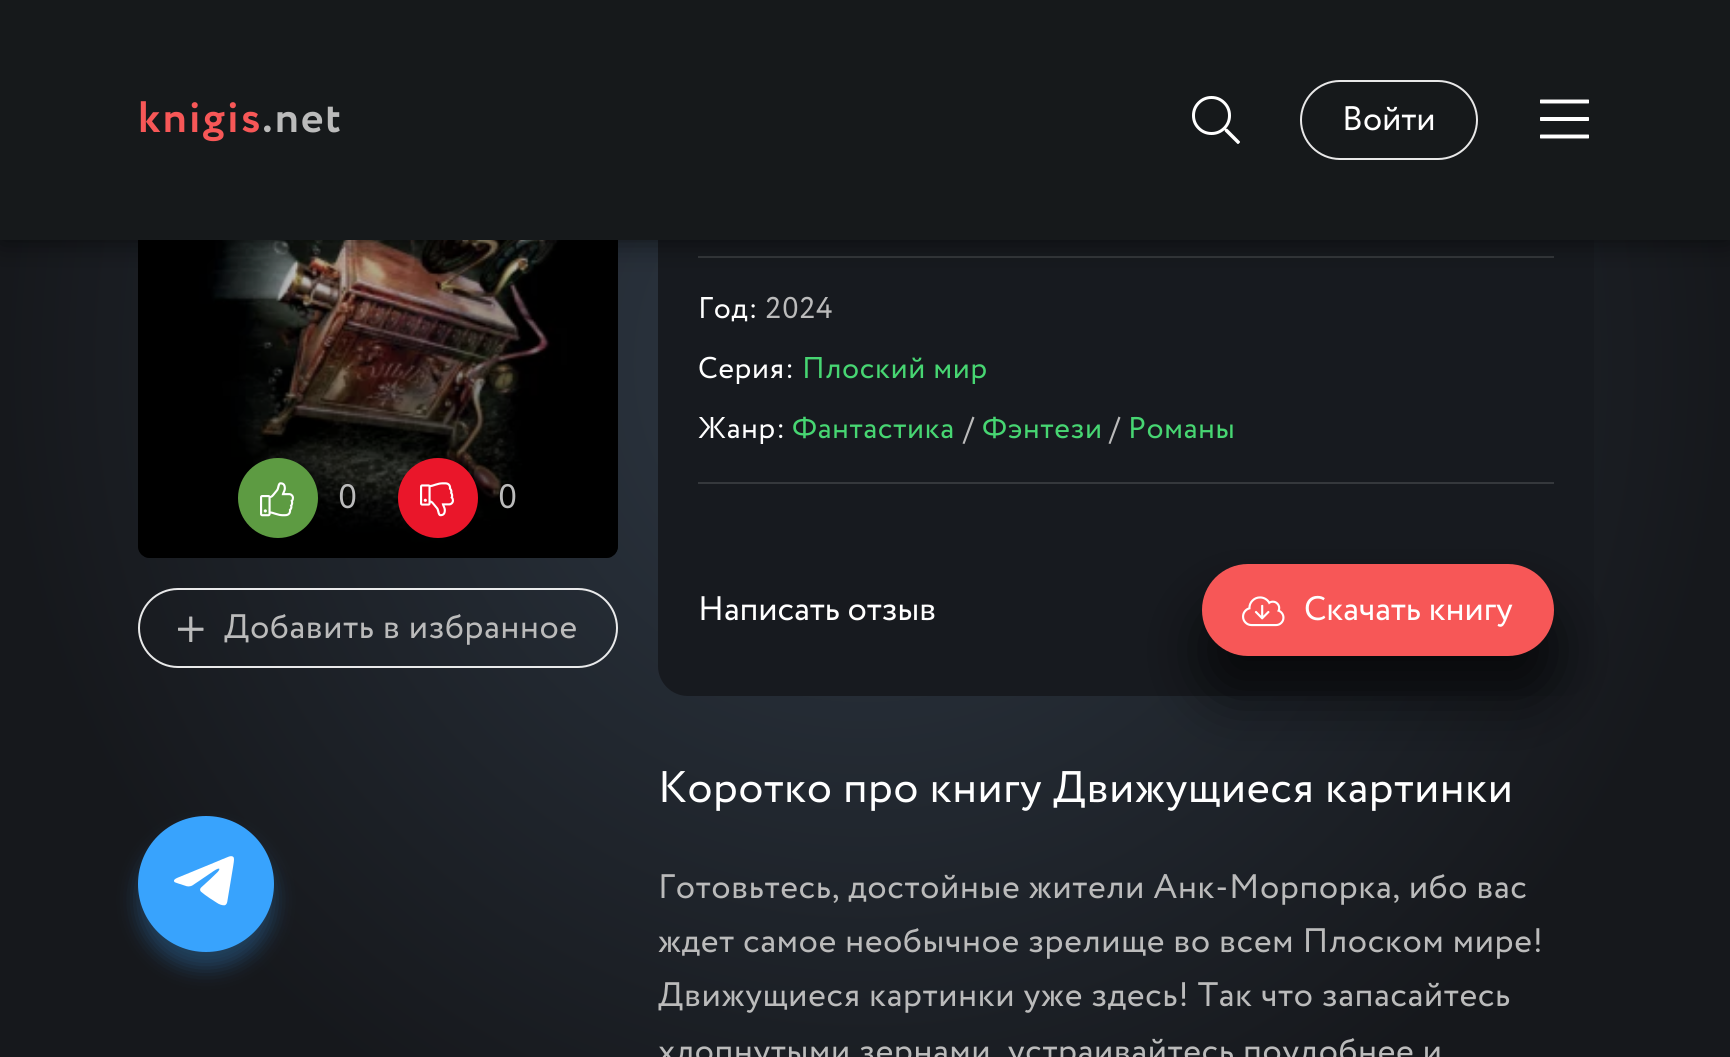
import math
import cairo

surface = cairo.ImageSurface(cairo.FORMAT_RGB24, 1730, 1057)
ctx = cairo.Context(surface)
options = cairo.FontOptions()
options.set_hint_metrics(cairo.HINT_METRICS_OFF)
options.set_hint_style(cairo.HINT_STYLE_NONE)
ctx.set_font_options(options)
ctx.set_miter_limit(4)


def set_color(code):
    ctx.set_source_rgb(*(v / 255 for v in bytes.fromhex(code[-6:])))


def fill_rect(x, y, w, h, color):
    set_color(color)
    ctx.rectangle(x, y, w, h)
    ctx.fill()


def rounded_rect(x, y, w, h, r):
    ctx.new_sub_path()
    for i, (u, v) in enumerate([(x + w - r, y + h - r), (x + r, y + h - r), (x + r, y + r), (x + w - r, y + r)]):
        ctx.arc(u, v, r, i * math.pi / 2, (i + 1) * math.pi / 2)
    ctx.close_path()


def draw_shadow(x, y, w, h, r, blur, alpha):
    ctx.push_group_with_content(cairo.CONTENT_ALPHA)
    ctx.set_operator(cairo.OPERATOR_SOURCE)
    for i in range(15, -16, -2):
        e = blur * i / 6
        if min(w, h) + 2 * e > 0:
            ctx.set_source_rgba(0, 0, 0, alpha * math.erfc((i - 1) / 8.5) / 2)
            rounded_rect(x - e, y - e, w + 2 * e, h + 2 * e, max(0, min(r + e + blur * .6, min(w, h) / 2 + e)))
            ctx.fill()
    ctx.mask(ctx.pop_group())


def draw_image(path, x, y, w, h):
    ctx.save()
    ctx.set_source_surface(cairo.ImageSurface.create_from_png(path), x, y)
    ctx.rectangle(x, y, w, h)
    ctx.fill()
    ctx.restore()


set_color("#ffffff")
ctx.paint()
gradient = cairo.RadialGradient(865, 363, 0, 865, 363, 865)
gradient.add_color_stop_rgba(0, 0.18, 0.22, 0.267, 1)
gradient.add_color_stop_rgba(1, 0.086, 0.094, 0.11, 1)
ctx.set_source(gradient)
ctx.rectangle(0, 240, 1730, 817)
ctx.fill()
draw_image("assets/img1.png", 138, 240, 480, 318)
gradient = cairo.LinearGradient(378, 558, 378, 126)
gradient.add_color_stop_rgba(0, 0, 0, 0, 0.8)
gradient.add_color_stop_rgba(1, 0, 0, 0, 0)
ctx.set_source(gradient)
ctx.new_path()
ctx.move_to(138, 126)
ctx.line_to(618, 126)
ctx.line_to(618, 546)
ctx.curve_to(618, 552.5, 612.5, 558, 606, 558)
ctx.line_to(150, 558)
ctx.curve_to(143.5, 558, 138, 552.5, 138, 546)
ctx.close_path()
ctx.fill()
set_color("#5d9b42")
ctx.arc(278, 498, 40, 0, 2 * math.pi)
ctx.fill()
draw_image("assets/img2.png", 260, 482, 34, 35)
draw_image("assets/img3.png", 339, 483, 17, 26)
set_color("#ea162a")
ctx.arc(438, 498, 40, 0, 2 * math.pi)
ctx.fill()
draw_image("assets/img4.png", 420, 482, 34, 35)
draw_image("assets/img5.png", 499, 483, 17, 26)
rounded_rect(139, 589, 478, 78, 39)
ctx.set_source_rgba(1, 1, 1, 0.9)
ctx.stroke()
draw_image("assets/img6.png", 178, 616, 26, 26)
draw_image("assets/img7.png", 224, 614, 352, 31)
set_color("#171a1f")
rounded_rect(658, -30, 936, 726, 30)
ctx.fill()
fill_rect(698, 256, 856, 2, "#35383c")
draw_image("assets/img8.png", 701, 297, 54, 25)
draw_image("assets/img9.png", 766, 296, 66, 23)
draw_image("assets/img10.png", 699, 356, 93, 28)
draw_image("assets/img11.png", 805, 357, 181, 27)
draw_image("assets/img12.png", 698, 417, 85, 27)
draw_image("assets/img13.png", 793, 416, 160, 23)
set_color("#bbbbbb")
ctx.new_path()
ctx.move_to(962.5, 443.5)
ctx.line_to(972.5, 416.5)
ctx.line_to(974.5, 417.5)
ctx.line_to(964.5, 444)
ctx.close_path()
ctx.fill()
draw_image("assets/img14.png", 983, 416, 117, 23)
ctx.new_path()
ctx.move_to(1108.5, 443.5)
ctx.line_to(1118.5, 416.5)
ctx.line_to(1120.5, 417.5)
ctx.line_to(1110.5, 444)
ctx.close_path()
ctx.fill()
draw_image("assets/img15.png", 1131, 416, 102, 23)
fill_rect(698, 482, 856, 2, "#35383c")
draw_image("assets/img16.png", 701, 596, 234, 25)
set_color("#000000")
draw_shadow(1202, 604, 352, 92, 46, 30, 0.66)
set_color("#f75757")
rounded_rect(1202, 564, 352, 92, 46)
ctx.fill()
draw_image("assets/img17.png", 1242, 596, 43, 31)
draw_image("assets/img18.png", 1305, 595, 208, 32)
draw_image("assets/img19.png", 662, 771, 848, 40)
draw_image("assets/img20.png", 661, 874, 865, 31)
draw_image("assets/img21.png", 658, 928, 882, 31)
draw_image("assets/img22.png", 658, 982, 852, 31)
draw_image("assets/img23.png", 659, 1038, 781, 19)
set_color("#000000")
draw_shadow(0, 0, 1730, 240, 0, 15, 0.6)
fill_rect(0, 0, 1730, 240, "#16191b")
draw_image("assets/img24.png", 140, 101, 119, 41)
draw_image("assets/img25.png", 264, 106, 76, 27)
draw_image("assets/img26.png", 1192, 96, 48, 48)
rounded_rect(1301, 81, 176, 78, 39)
set_color("#e8e8e8")
ctx.stroke()
draw_image("assets/img27.png", 1345, 106, 89, 25)
draw_image("assets/img28.png", 1540, 99, 49, 40)
set_color("#38a3fd")
draw_shadow(138, 832, 136, 136, 68, 10, 0.3)
set_color("#38a3fd")
ctx.arc(206, 884, 66, 0, 2 * math.pi)
ctx.fill_preserve()
ctx.set_line_width(4)
ctx.stroke()
draw_image("assets/img29.png", 174, 856, 60, 50)
surface.write_to_png("output.png")
